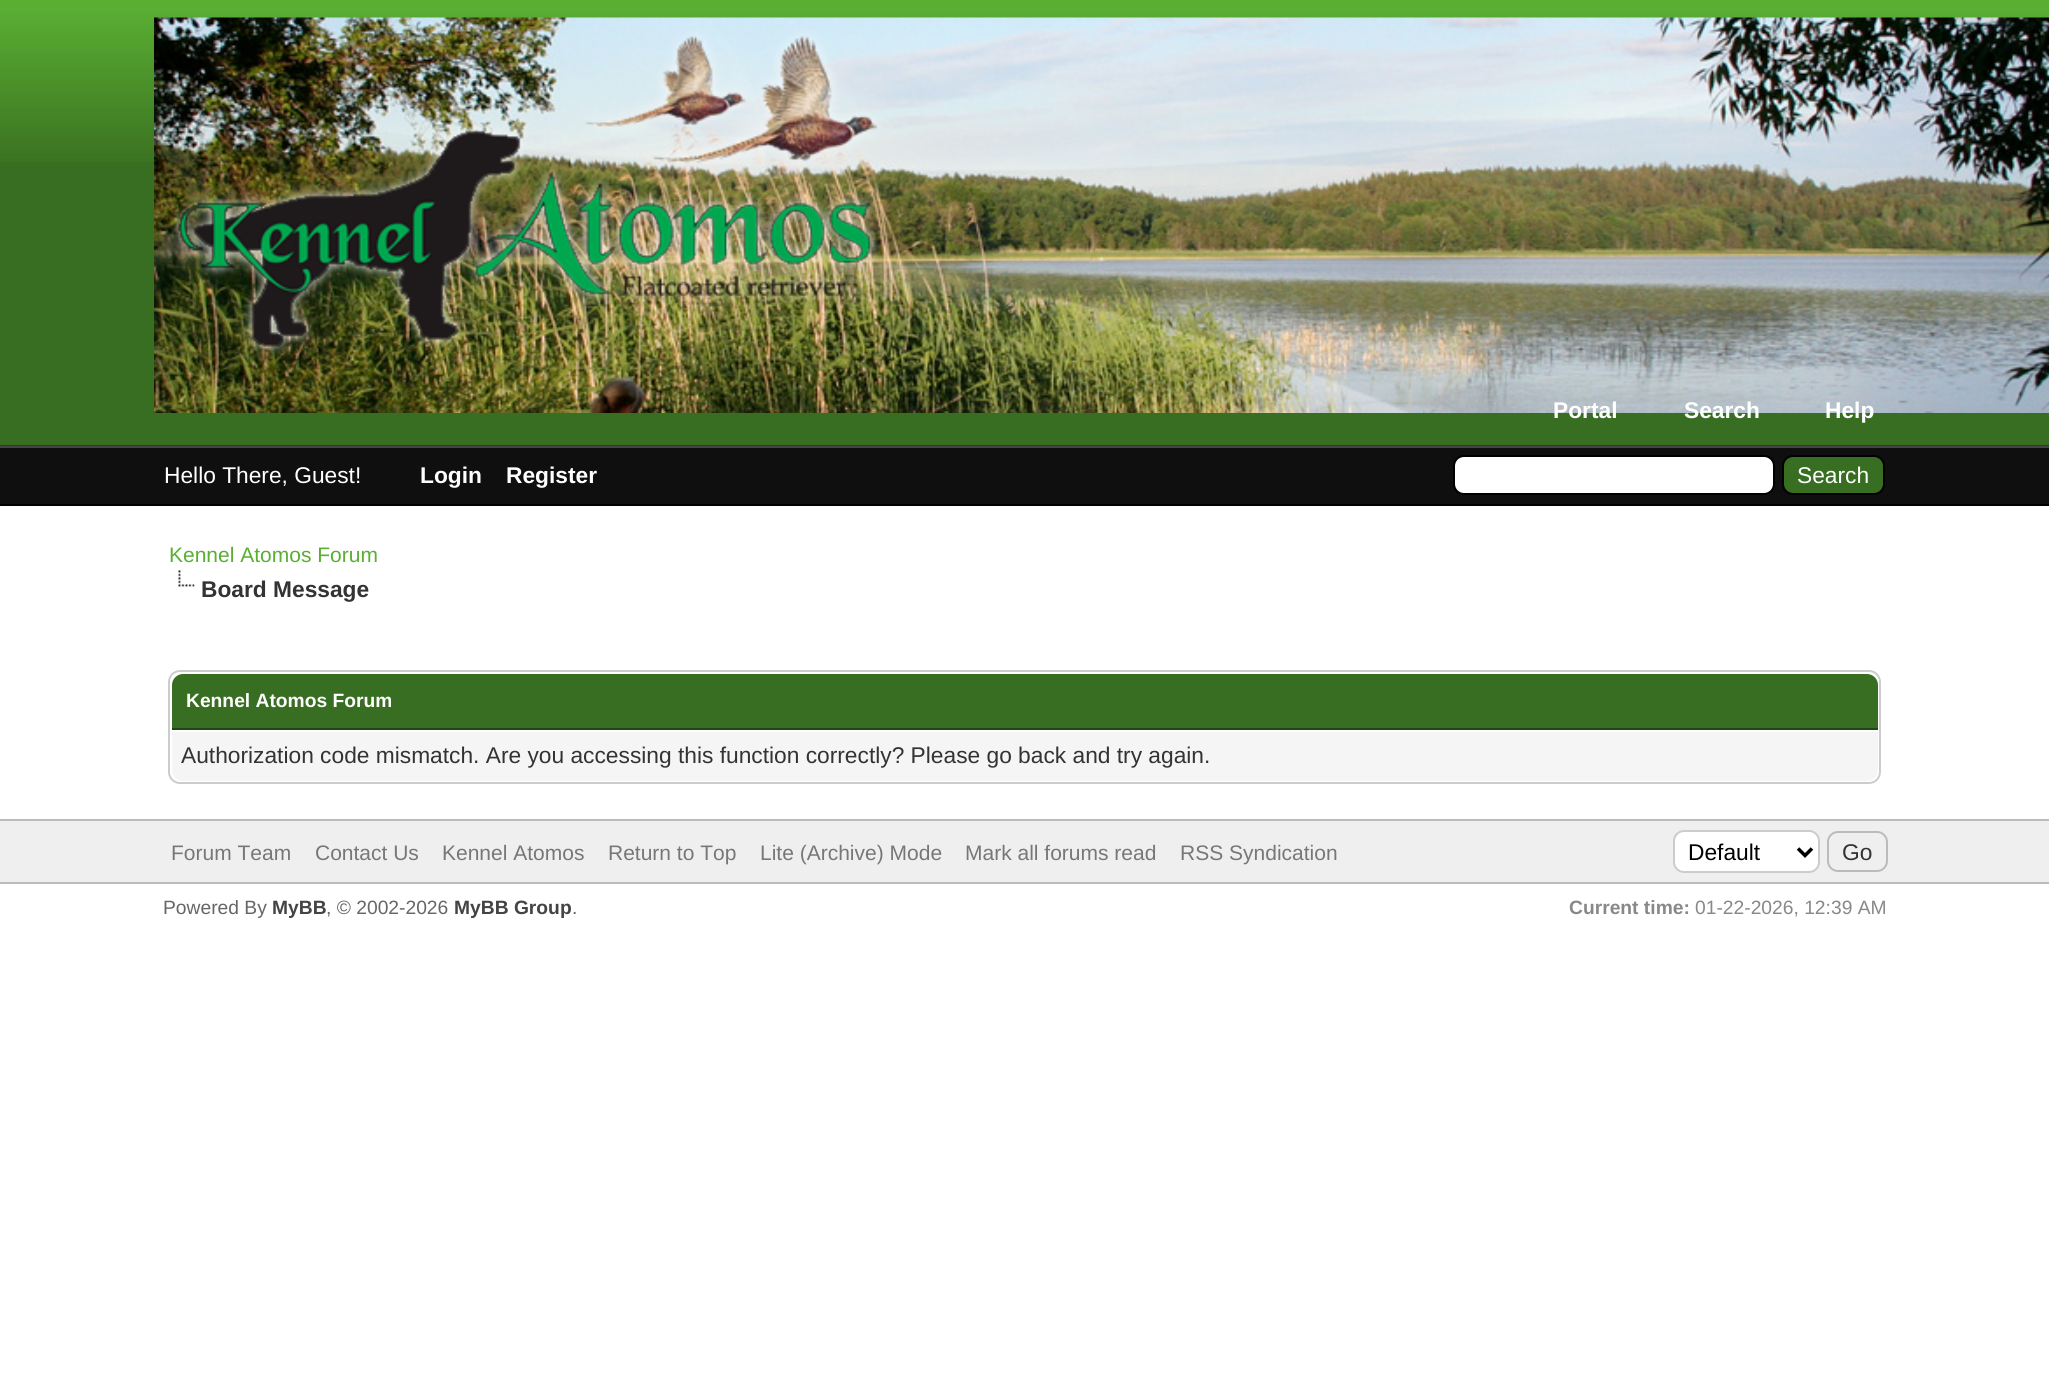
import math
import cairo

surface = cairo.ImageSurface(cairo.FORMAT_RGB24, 2049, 1391)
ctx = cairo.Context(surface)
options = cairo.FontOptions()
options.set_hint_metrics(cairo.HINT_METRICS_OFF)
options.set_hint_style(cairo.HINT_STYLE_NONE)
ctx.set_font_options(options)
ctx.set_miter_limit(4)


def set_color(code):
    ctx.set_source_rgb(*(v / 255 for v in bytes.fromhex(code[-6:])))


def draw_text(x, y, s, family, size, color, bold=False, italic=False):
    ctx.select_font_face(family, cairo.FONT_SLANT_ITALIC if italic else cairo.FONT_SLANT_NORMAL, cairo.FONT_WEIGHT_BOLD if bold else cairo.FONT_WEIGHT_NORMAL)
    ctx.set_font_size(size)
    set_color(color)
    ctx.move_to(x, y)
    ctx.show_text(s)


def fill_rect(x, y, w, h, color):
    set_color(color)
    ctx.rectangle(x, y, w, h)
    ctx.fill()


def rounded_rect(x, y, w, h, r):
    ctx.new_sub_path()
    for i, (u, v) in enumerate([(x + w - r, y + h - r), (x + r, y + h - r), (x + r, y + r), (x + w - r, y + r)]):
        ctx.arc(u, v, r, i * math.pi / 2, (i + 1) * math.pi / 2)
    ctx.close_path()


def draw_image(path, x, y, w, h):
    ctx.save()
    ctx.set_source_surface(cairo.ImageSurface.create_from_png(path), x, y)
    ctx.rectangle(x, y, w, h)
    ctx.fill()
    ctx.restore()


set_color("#ffffff")
ctx.paint()
fill_rect(0, 162, 2049, 283, "#386e21")
draw_image("assets/img1.png", 0, 0, 2049, 162)
fill_rect(0, 445, 2049, 1, "#234615")
draw_image("assets/img2.png", 154, 17, 1895, 396)
draw_text(1553, 418, "Portal", "Liberation Sans", 22.75, "#ffffff", bold=True)
draw_text(1684, 418, "Search", "Liberation Sans", 22.75, "#ffffff", bold=True)
draw_text(1825, 418, "Help", "Liberation Sans", 22.75, "#ffffff", bold=True)
fill_rect(0, 448, 2049, 56, "#0f0f0f")
fill_rect(0, 446, 2049, 2, "#444444")
fill_rect(0, 504, 2049, 2, "#000000")
draw_text(164, 483, "Hello There, Guest!", "Liberation Sans", 22.75, "#ffffff")
draw_text(420, 483, "Login", "Liberation Sans", 22.75, "#ffffff", bold=True)
draw_text(506, 483, "Register", "Liberation Sans", 22.75, "#ffffff", bold=True)
rounded_rect(1454, 456, 320, 38, 10)
ctx.fill_preserve()
set_color("#000000")
ctx.stroke()
set_color("#386e21")
rounded_rect(1783, 456, 101, 38, 10)
ctx.fill_preserve()
set_color("#000000")
ctx.stroke()
draw_text(1797, 483, "Search", "Liberation Sans", 22.75, "#ffffff")
draw_text(169, 562, "Kennel Atomos Forum", "Liberation Sans", 21, "#5aaf33")
draw_image("assets/img3.png", 178, 570, 17, 17)
draw_text(201, 597, "Board Message", "Liberation Sans", 22.75, "#333333", bold=True)
rounded_rect(169, 671, 1711, 112, 11)
set_color("#cccccc")
ctx.stroke()
set_color("#386e21")
ctx.new_path()
ctx.move_to(183, 674)
ctx.line_to(1867, 674)
ctx.curve_to(1873, 674, 1878, 679, 1878, 685)
ctx.line_to(1878, 730)
ctx.line_to(172, 730)
ctx.line_to(172, 685)
ctx.curve_to(172, 679, 177, 674, 183, 674)
ctx.close_path()
ctx.fill()
fill_rect(172, 728, 1706, 2, "#234615")
draw_text(186, 707, "Kennel Atomos Forum", "Liberation Sans", 19.25, "#ffffff", bold=True)
set_color("#f5f5f5")
ctx.new_path()
ctx.move_to(172, 730)
ctx.line_to(1878, 730)
ctx.line_to(1878, 770)
ctx.curve_to(1878, 776, 1873, 781, 1867, 781)
ctx.line_to(183, 781)
ctx.curve_to(177, 781, 172, 776, 172, 770)
ctx.close_path()
ctx.fill()
fill_rect(172, 730, 1706, 2, "#ffffff")
draw_text(181, 763, "Authorization code mismatch. Are you accessing this function correctly? Please go back and try again.", "Liberation Sans", 22.75, "#333333")
fill_rect(0, 821, 2049, 61, "#efefef")
fill_rect(0, 819, 2049, 2, "#bbbbbb")
fill_rect(0, 882, 2049, 2, "#bbbbbb")
draw_text(171, 860, "Forum Team", "Liberation Sans", 21, "#777777")
draw_text(315, 860, "Contact Us", "Liberation Sans", 21, "#777777")
draw_text(442, 860, "Kennel Atomos", "Liberation Sans", 21, "#777777")
draw_text(608, 860, "Return to Top", "Liberation Sans", 21, "#777777")
draw_text(760, 860, "Lite (Archive) Mode", "Liberation Sans", 21, "#777777")
draw_text(965, 860, "Mark all forums read", "Liberation Sans", 21, "#777777")
draw_text(1180, 860, "RSS Syndication", "Liberation Sans", 21, "#777777")
set_color("#ffffff")
rounded_rect(1674, 831, 145, 41, 10)
ctx.fill_preserve()
set_color("#cccccc")
ctx.stroke()
ctx.new_path()
ctx.move_to(1798, 848.5)
ctx.line_to(1805, 855.5)
ctx.line_to(1812, 848.5)
set_color("#000000")
ctx.set_line_width(3.5)
ctx.stroke()
draw_text(1688, 860, "Default", "Liberation Sans", 22.75, "#000000")
rounded_rect(1828, 832, 59, 39, 10)
set_color("#bbbbbb")
ctx.set_line_width(2)
ctx.stroke()
draw_text(1842, 860, "Go", "Liberation Sans", 22.75, "#333333")
draw_text(163, 914, "Powered By", "Liberation Sans", 19.25, "#666666")
draw_text(272, 914, "MyBB", "Liberation Sans", 19.25, "#444444", bold=True)
draw_text(326, 914, ", © 2002-2026", "Liberation Sans", 19.25, "#666666")
draw_text(454, 914, "MyBB Group", "Liberation Sans", 19.25, "#444444", bold=True)
draw_text(572, 914, ".", "Liberation Sans", 19.25, "#666666")
draw_text(1569, 914, "Current time:", "Liberation Sans", 19.25, "#888888", bold=True)
draw_text(1695, 914, "01-22-2026, 12:39 AM", "Liberation Sans", 19.25, "#888888")
surface.write_to_png("output.png")
